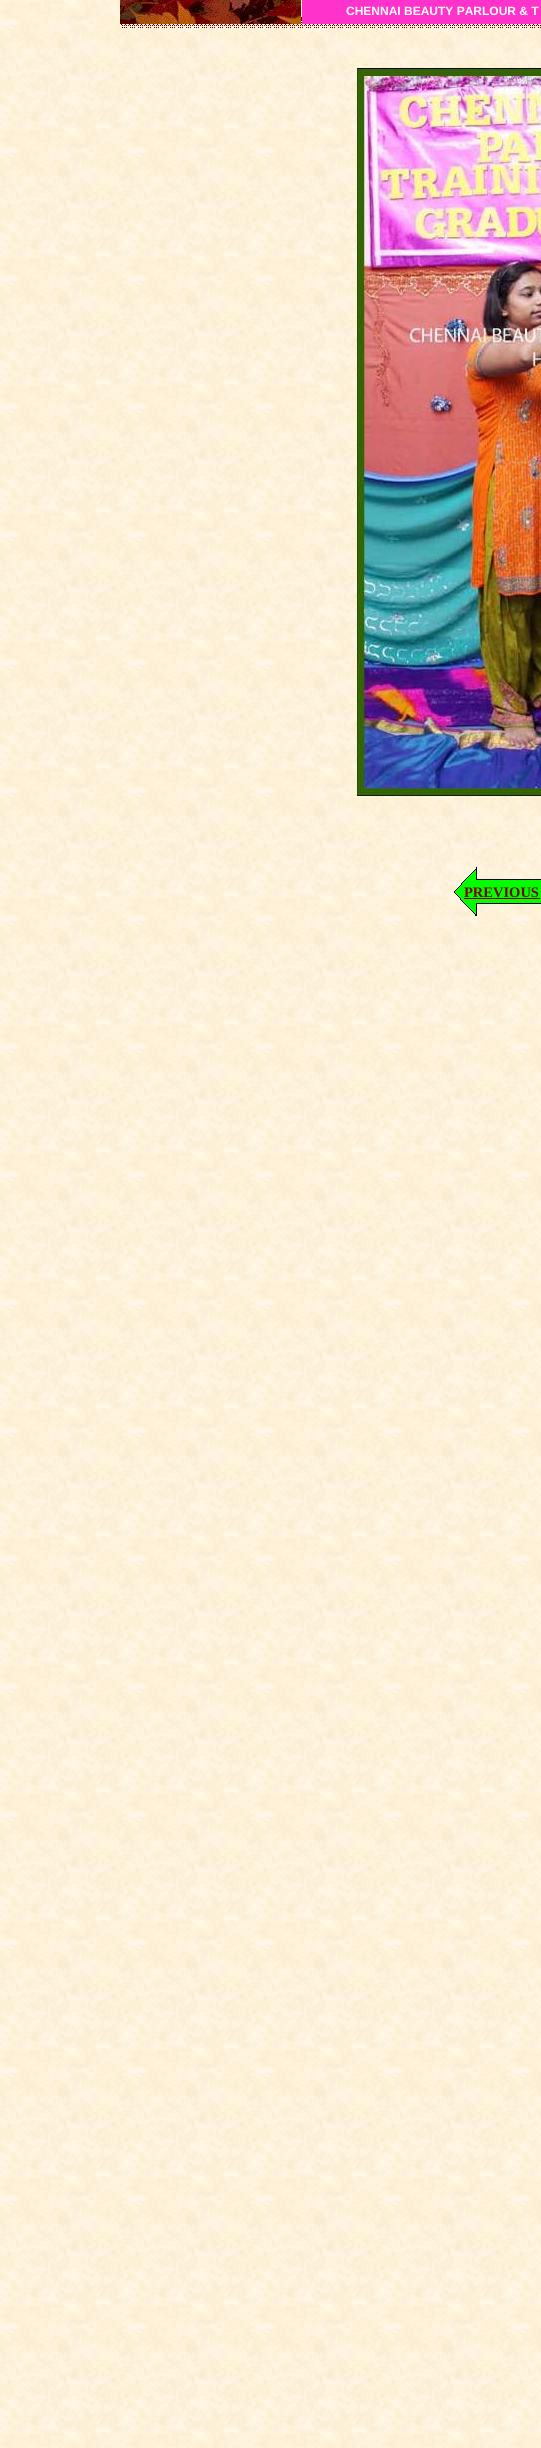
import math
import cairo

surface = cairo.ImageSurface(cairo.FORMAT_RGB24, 541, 2448)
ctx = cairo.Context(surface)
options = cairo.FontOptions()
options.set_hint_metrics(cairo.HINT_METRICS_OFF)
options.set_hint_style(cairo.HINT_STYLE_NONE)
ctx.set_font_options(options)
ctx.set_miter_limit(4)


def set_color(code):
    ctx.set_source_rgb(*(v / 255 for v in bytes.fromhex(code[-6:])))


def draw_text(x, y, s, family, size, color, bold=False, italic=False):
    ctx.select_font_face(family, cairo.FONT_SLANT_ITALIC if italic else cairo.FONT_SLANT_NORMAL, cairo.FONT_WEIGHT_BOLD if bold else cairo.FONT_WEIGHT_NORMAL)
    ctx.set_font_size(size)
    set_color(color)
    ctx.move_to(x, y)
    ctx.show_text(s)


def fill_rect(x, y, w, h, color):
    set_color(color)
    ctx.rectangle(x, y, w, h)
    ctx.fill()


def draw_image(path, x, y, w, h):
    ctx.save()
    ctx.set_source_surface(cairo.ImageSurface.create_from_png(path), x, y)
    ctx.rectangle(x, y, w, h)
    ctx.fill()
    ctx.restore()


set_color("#ffffff")
ctx.paint()
draw_image("assets/img1.png", 0, 0, 541, 2448)
draw_image("assets/img3.png", 121, 17, 420, 11)
draw_image("assets/img2.png", 120, 0, 181, 24)
fill_rect(302, 0, 239, 24, "#ff33cc")
draw_text(346, 15, "CHENNAI BEAUTY PARLOUR & T", "Liberation Sans", 12, "#ffffff", bold=True)
draw_image("assets/img4.png", 357, 68, 184, 728)
draw_image("assets/img5.png", 454, 867, 87, 49)
draw_text(464, 897, "PREVIOUS", "Liberation Serif", 14.5, "#800000", bold=True)
fill_rect(464, 898, 76, 1, "#800000")
surface.write_to_png("output.png")
